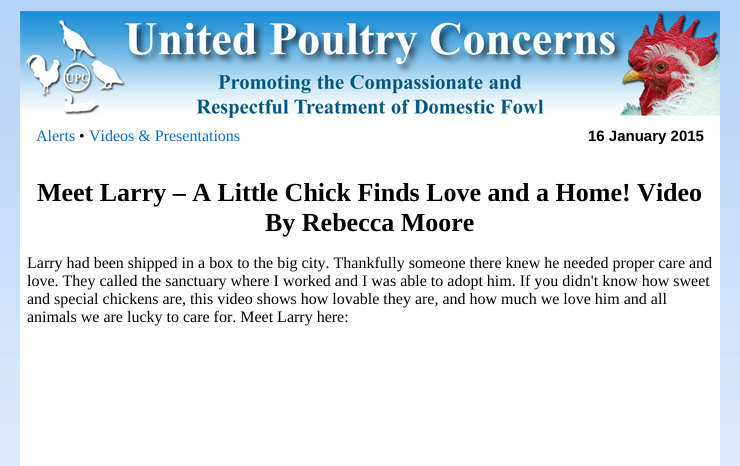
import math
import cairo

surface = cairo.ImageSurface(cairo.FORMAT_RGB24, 740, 466)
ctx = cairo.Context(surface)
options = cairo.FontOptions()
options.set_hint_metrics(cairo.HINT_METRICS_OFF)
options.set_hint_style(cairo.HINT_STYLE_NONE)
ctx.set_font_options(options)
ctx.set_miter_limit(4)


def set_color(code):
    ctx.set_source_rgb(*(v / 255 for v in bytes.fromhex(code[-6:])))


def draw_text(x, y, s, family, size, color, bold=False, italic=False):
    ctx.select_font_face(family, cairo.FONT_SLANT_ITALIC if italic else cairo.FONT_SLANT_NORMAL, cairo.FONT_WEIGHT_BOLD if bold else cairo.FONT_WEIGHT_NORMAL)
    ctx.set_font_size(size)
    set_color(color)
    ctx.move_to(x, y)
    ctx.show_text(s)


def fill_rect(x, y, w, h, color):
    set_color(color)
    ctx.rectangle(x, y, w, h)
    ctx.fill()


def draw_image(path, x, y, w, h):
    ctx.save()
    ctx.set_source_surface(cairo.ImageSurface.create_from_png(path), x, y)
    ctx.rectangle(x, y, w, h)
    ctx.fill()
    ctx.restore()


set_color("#ffffff")
ctx.paint()
draw_image("assets/img1.png", 0, 0, 740, 466)
fill_rect(20, 118, 700, 348, "#ffffff")
draw_image("assets/img2.png", 20, 11, 700, 107)
draw_text(36, 141, "Alerts", "Liberation Serif", 16, "#006ed6")
draw_text(79, 141, "•", "Liberation Serif", 16, "#000000")
draw_text(89, 141, "Videos & Presentations", "Liberation Serif", 16, "#006ed6")
draw_text(588, 141, "16 January 2015", "Liberation Sans", 15, "#000000", bold=True)
draw_text(37, 201, "Meet Larry – A Little Chick Finds Love and a Home! Video", "Liberation Serif", 26, "#000000", bold=True)
draw_text(265, 231, "By Rebecca Moore", "Liberation Serif", 26, "#000000", bold=True)
draw_text(27, 268, "Larry had been shipped in a box to the big city. Thankfully someone there knew he needed proper care and", "Liberation Serif", 16, "#000000")
draw_text(27, 286, "love. They called the sanctuary where I worked and I was able to adopt him. If you didn't know how sweet", "Liberation Serif", 16, "#000000")
draw_text(27, 304, "and special chickens are, this video shows how lovable they are, and how much we love him and all", "Liberation Serif", 16, "#000000")
draw_text(27, 322, "animals we are lucky to care for. Meet Larry here:", "Liberation Serif", 16, "#000000")
surface.write_to_png("output.png")
